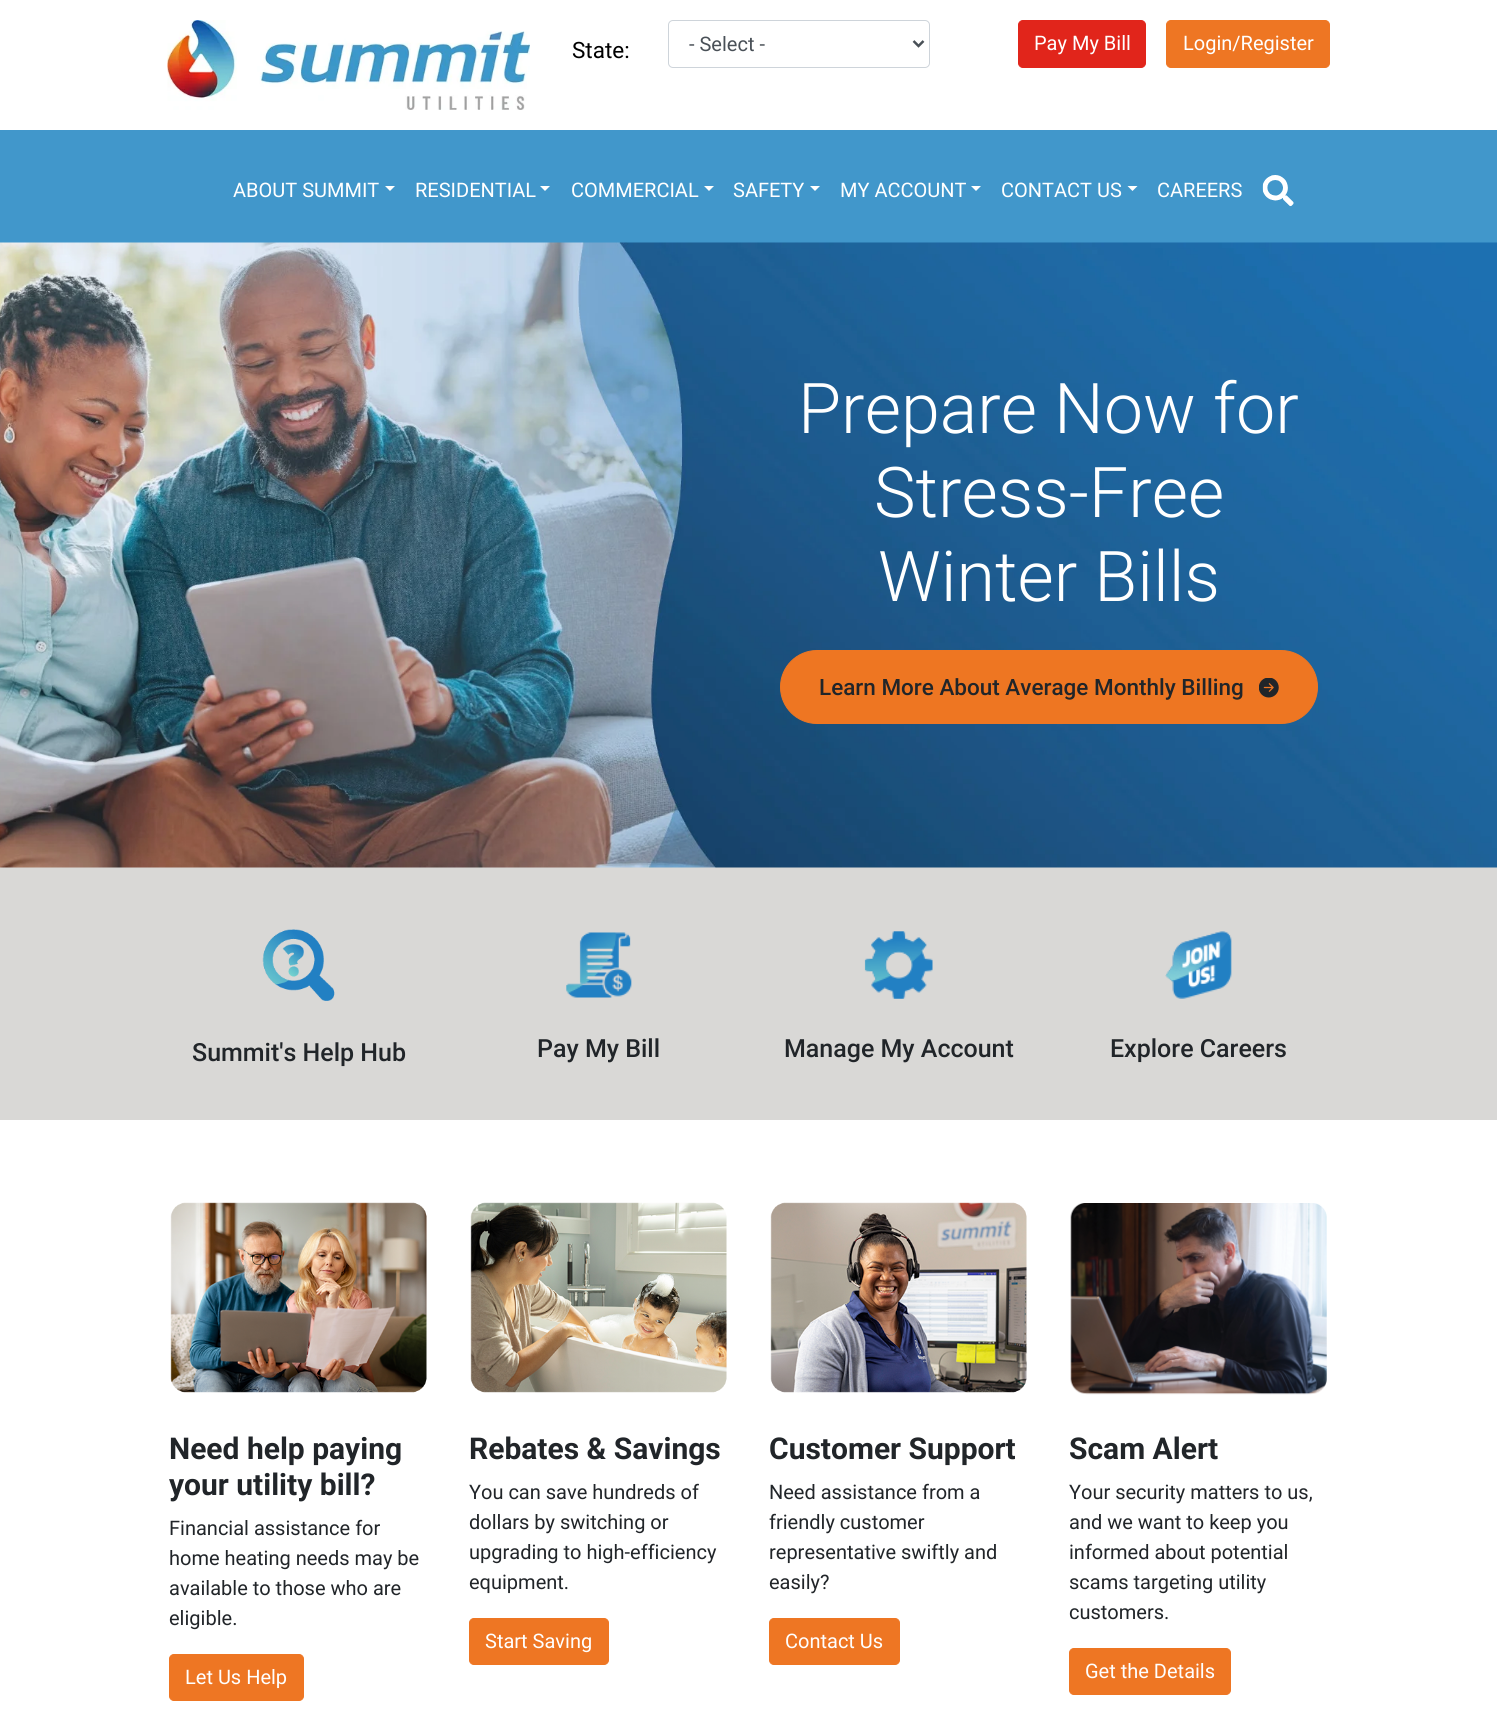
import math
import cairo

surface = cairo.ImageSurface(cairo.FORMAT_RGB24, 1497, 1727)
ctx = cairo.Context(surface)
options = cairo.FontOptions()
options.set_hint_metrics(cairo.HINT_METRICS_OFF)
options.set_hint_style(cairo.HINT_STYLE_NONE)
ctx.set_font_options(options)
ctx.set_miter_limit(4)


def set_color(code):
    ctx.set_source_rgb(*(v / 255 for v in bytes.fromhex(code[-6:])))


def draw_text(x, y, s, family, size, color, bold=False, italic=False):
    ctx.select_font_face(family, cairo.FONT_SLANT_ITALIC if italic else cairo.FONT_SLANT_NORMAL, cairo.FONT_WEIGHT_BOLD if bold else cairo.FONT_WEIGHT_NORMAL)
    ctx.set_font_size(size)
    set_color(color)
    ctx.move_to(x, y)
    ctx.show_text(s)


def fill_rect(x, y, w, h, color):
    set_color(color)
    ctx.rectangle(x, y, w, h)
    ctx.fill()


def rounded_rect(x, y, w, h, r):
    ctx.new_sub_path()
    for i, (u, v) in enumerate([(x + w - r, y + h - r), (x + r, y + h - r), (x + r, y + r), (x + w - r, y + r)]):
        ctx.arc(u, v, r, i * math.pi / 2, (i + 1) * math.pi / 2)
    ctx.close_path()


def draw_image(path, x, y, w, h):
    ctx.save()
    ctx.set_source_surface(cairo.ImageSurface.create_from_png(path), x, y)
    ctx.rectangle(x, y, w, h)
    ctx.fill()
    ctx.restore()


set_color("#ffffff")
ctx.paint()
draw_image("assets/img1.png", 167, 20, 363, 90)
draw_text(572, 58, "State:", "Roboto", 22.5, "#000000")
rounded_rect(668.5, 20.5, 261, 47, 4.5)
set_color("#ced4da")
ctx.set_line_width(1)
ctx.stroke()
ctx.new_path()
ctx.move_to(913.5, 41)
ctx.line_to(918.5, 46)
ctx.line_to(923.5, 41)
set_color("#495057")
ctx.set_line_width(2.5)
ctx.stroke()
draw_text(689, 51, "- Select -", "Roboto", 20, "#495057")
set_color("#e1251b")
rounded_rect(1018.5, 20.5, 127, 47, 4.5)
ctx.fill_preserve()
ctx.set_line_width(1)
ctx.stroke()
draw_text(1034, 50, "Pay My Bill", "Roboto", 20, "#ffffff")
set_color("#ee7623")
rounded_rect(1166.5, 20.5, 163, 47, 4.5)
ctx.fill_preserve()
ctx.stroke()
draw_text(1183, 50, "Login/Register", "Roboto", 20, "#ffffff")
fill_rect(0, 130, 1497, 113, "#4197cb")
draw_text(233, 197, "ABOUT SUMMIT", "Roboto", 20, "#ffffff")
ctx.new_path()
ctx.move_to(385, 186)
ctx.line_to(395, 186)
ctx.line_to(390, 191)
ctx.close_path()
ctx.fill()
draw_text(415, 197, "RESIDENTIAL", "Roboto", 20, "#ffffff")
ctx.new_path()
ctx.move_to(540, 186)
ctx.line_to(550, 186)
ctx.line_to(545, 191)
ctx.close_path()
ctx.fill()
draw_text(571, 197, "COMMERCIAL", "Roboto", 20, "#ffffff")
ctx.new_path()
ctx.move_to(704, 186)
ctx.line_to(714, 186)
ctx.line_to(709, 191)
ctx.close_path()
ctx.fill()
draw_text(733, 197, "SAFETY", "Roboto", 20, "#ffffff")
ctx.new_path()
ctx.move_to(810, 186)
ctx.line_to(820, 186)
ctx.line_to(815, 191)
ctx.close_path()
ctx.fill()
draw_text(840, 197, "MY ACCOUNT", "Roboto", 20, "#ffffff")
ctx.new_path()
ctx.move_to(971, 186)
ctx.line_to(981, 186)
ctx.line_to(976, 191)
ctx.close_path()
ctx.fill()
draw_text(1001, 197, "CONTACT US", "Roboto", 20, "#ffffff")
ctx.new_path()
ctx.move_to(1127.5, 186)
ctx.line_to(1137.5, 186)
ctx.line_to(1132.5, 191)
ctx.close_path()
ctx.fill()
draw_text(1157, 197, "CAREERS", "Roboto", 20, "#ffffff")
draw_image("assets/img2.png", 1262, 175, 32, 32)
fill_rect(0, 867, 1497, 253, "#d9d8d6")
draw_image("assets/img3.png", 0, 242, 1497, 626)
draw_text(798, 433, "Prepare Now for", "Roboto Light", 70, "#ffffff")
draw_text(874, 517, "Stress-Free", "Roboto Light", 70, "#ffffff")
draw_text(878, 601, "Winter Bills", "Roboto Light", 70, "#ffffff")
set_color("#ee7622")
rounded_rect(780.5, 650.5, 537, 73, 36.5)
ctx.fill_preserve()
ctx.stroke()
draw_text(819, 695, "Learn More About Average Monthly Billing", "Roboto Medium", 22.5, "#212529")
draw_image("assets/img4.png", 1259, 678, 20, 20)
draw_image("assets/img5.png", 262, 929, 73, 72)
draw_text(192, 1061, "Summit's Help Hub", "Roboto Medium", 25, "#212529")
draw_image("assets/img6.png", 566, 932, 66, 66)
draw_text(537, 1057, "Pay My Bill", "Roboto Medium", 25, "#212529")
draw_image("assets/img7.png", 864, 931, 69, 68)
draw_text(784, 1057, "Manage My Account", "Roboto Medium", 25, "#212529")
draw_image("assets/img8.png", 1165, 931, 67, 68)
draw_text(1110, 1057, "Explore Careers", "Roboto Medium", 25, "#212529")
draw_image("assets/img9.png", 170, 1202, 257, 191)
draw_text(169, 1459, "Need help paying", "Roboto", 30, "#212529", bold=True)
draw_text(169, 1495, "your utility bill?", "Roboto", 30, "#212529", bold=True)
draw_text(169, 1535, "Financial assistance for", "Roboto", 20, "#212529")
draw_text(169, 1565, "home heating needs may be", "Roboto", 20, "#212529")
draw_text(169, 1595, "available to those who are", "Roboto", 20, "#212529")
draw_text(169, 1625, "eligible.", "Roboto", 20, "#212529")
set_color("#ee7623")
rounded_rect(169.5, 1654.5, 134, 46, 4.5)
ctx.fill_preserve()
ctx.stroke()
draw_text(185, 1684, "Let Us Help", "Roboto", 20, "#ffffff")
draw_image("assets/img10.png", 470, 1202, 257, 191)
draw_text(469, 1459, "Rebates & Savings", "Roboto", 30, "#212529", bold=True)
draw_text(469, 1499, "You can save hundreds of", "Roboto", 20, "#212529")
draw_text(469, 1529, "dollars by switching or", "Roboto", 20, "#212529")
draw_text(469, 1559, "upgrading to high-efficiency", "Roboto", 20, "#212529")
draw_text(469, 1589, "equipment.", "Roboto", 20, "#212529")
set_color("#ee7623")
rounded_rect(469.5, 1618.5, 139, 46, 4.5)
ctx.fill_preserve()
ctx.stroke()
draw_text(485, 1648, "Start Saving", "Roboto", 20, "#ffffff")
draw_image("assets/img11.png", 770, 1202, 257, 191)
draw_text(769, 1459, "Customer Support", "Roboto", 30, "#212529", bold=True)
draw_text(769, 1499, "Need assistance from a", "Roboto", 20, "#212529")
draw_text(769, 1529, "friendly customer", "Roboto", 20, "#212529")
draw_text(769, 1559, "representative swiftly and", "Roboto", 20, "#212529")
draw_text(769, 1589, "easily?", "Roboto", 20, "#212529")
set_color("#ee7623")
rounded_rect(769.5, 1618.5, 130, 46, 4.5)
ctx.fill_preserve()
ctx.stroke()
draw_text(785, 1648, "Contact Us", "Roboto", 20, "#ffffff")
draw_image("assets/img12.png", 1070, 1203, 257, 192)
draw_text(1069, 1459, "Scam Alert", "Roboto", 30, "#212529", bold=True)
draw_text(1069, 1499, "Your security matters to us,", "Roboto", 20, "#212529")
draw_text(1069, 1529, "and we want to keep you", "Roboto", 20, "#212529")
draw_text(1069, 1559, "informed about potential", "Roboto", 20, "#212529")
draw_text(1069, 1589, "scams targeting utility", "Roboto", 20, "#212529")
draw_text(1069, 1619, "customers.", "Roboto", 20, "#212529")
set_color("#ee7623")
rounded_rect(1069.5, 1648.5, 161, 46, 4.5)
ctx.fill_preserve()
ctx.stroke()
draw_text(1085, 1678, "Get the Details", "Roboto", 20, "#ffffff")
surface.write_to_png("output.png")
